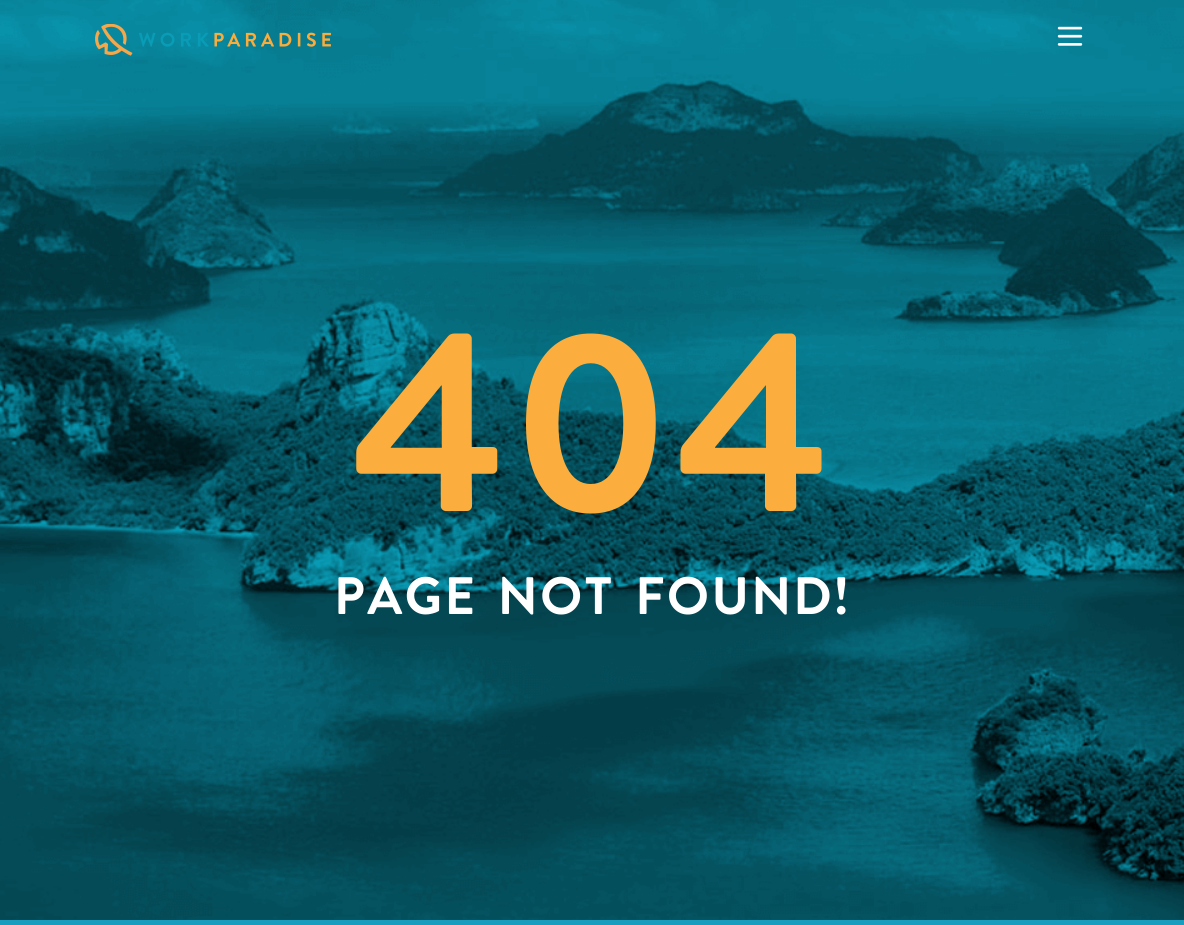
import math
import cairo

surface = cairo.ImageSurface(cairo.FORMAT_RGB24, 1184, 925)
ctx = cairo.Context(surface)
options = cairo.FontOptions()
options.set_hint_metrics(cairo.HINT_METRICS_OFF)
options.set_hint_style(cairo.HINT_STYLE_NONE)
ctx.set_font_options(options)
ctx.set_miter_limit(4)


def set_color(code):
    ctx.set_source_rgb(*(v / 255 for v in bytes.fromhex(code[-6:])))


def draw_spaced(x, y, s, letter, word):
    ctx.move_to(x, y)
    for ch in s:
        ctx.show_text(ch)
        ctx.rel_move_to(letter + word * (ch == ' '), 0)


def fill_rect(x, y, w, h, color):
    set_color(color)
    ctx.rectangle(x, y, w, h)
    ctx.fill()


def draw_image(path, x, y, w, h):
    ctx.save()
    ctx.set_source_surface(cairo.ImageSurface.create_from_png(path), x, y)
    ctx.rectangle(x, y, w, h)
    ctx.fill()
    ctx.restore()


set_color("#ffffff")
ctx.paint()
draw_image("assets/img3.png", 0, 0, 1184, 920)
draw_image("assets/img1.png", 95, 24, 236, 32)
draw_image("assets/img2.png", 1057, 26, 26, 20)
ctx.select_font_face("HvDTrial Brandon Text", cairo.FONT_SLANT_NORMAL, cairo.FONT_WEIGHT_BOLD)
ctx.set_font_size(250)
set_color("#fbad3d")
draw_spaced(349, 511, "404", 2.25, 0)
ctx.set_font_size(52.5)
set_color("#ffffff")
draw_spaced(334, 614, "PAGE NOT FOUND!", 2.25, 6)
fill_rect(0, 920, 1184, 5, "#199dbe")
surface.write_to_png("output.png")
